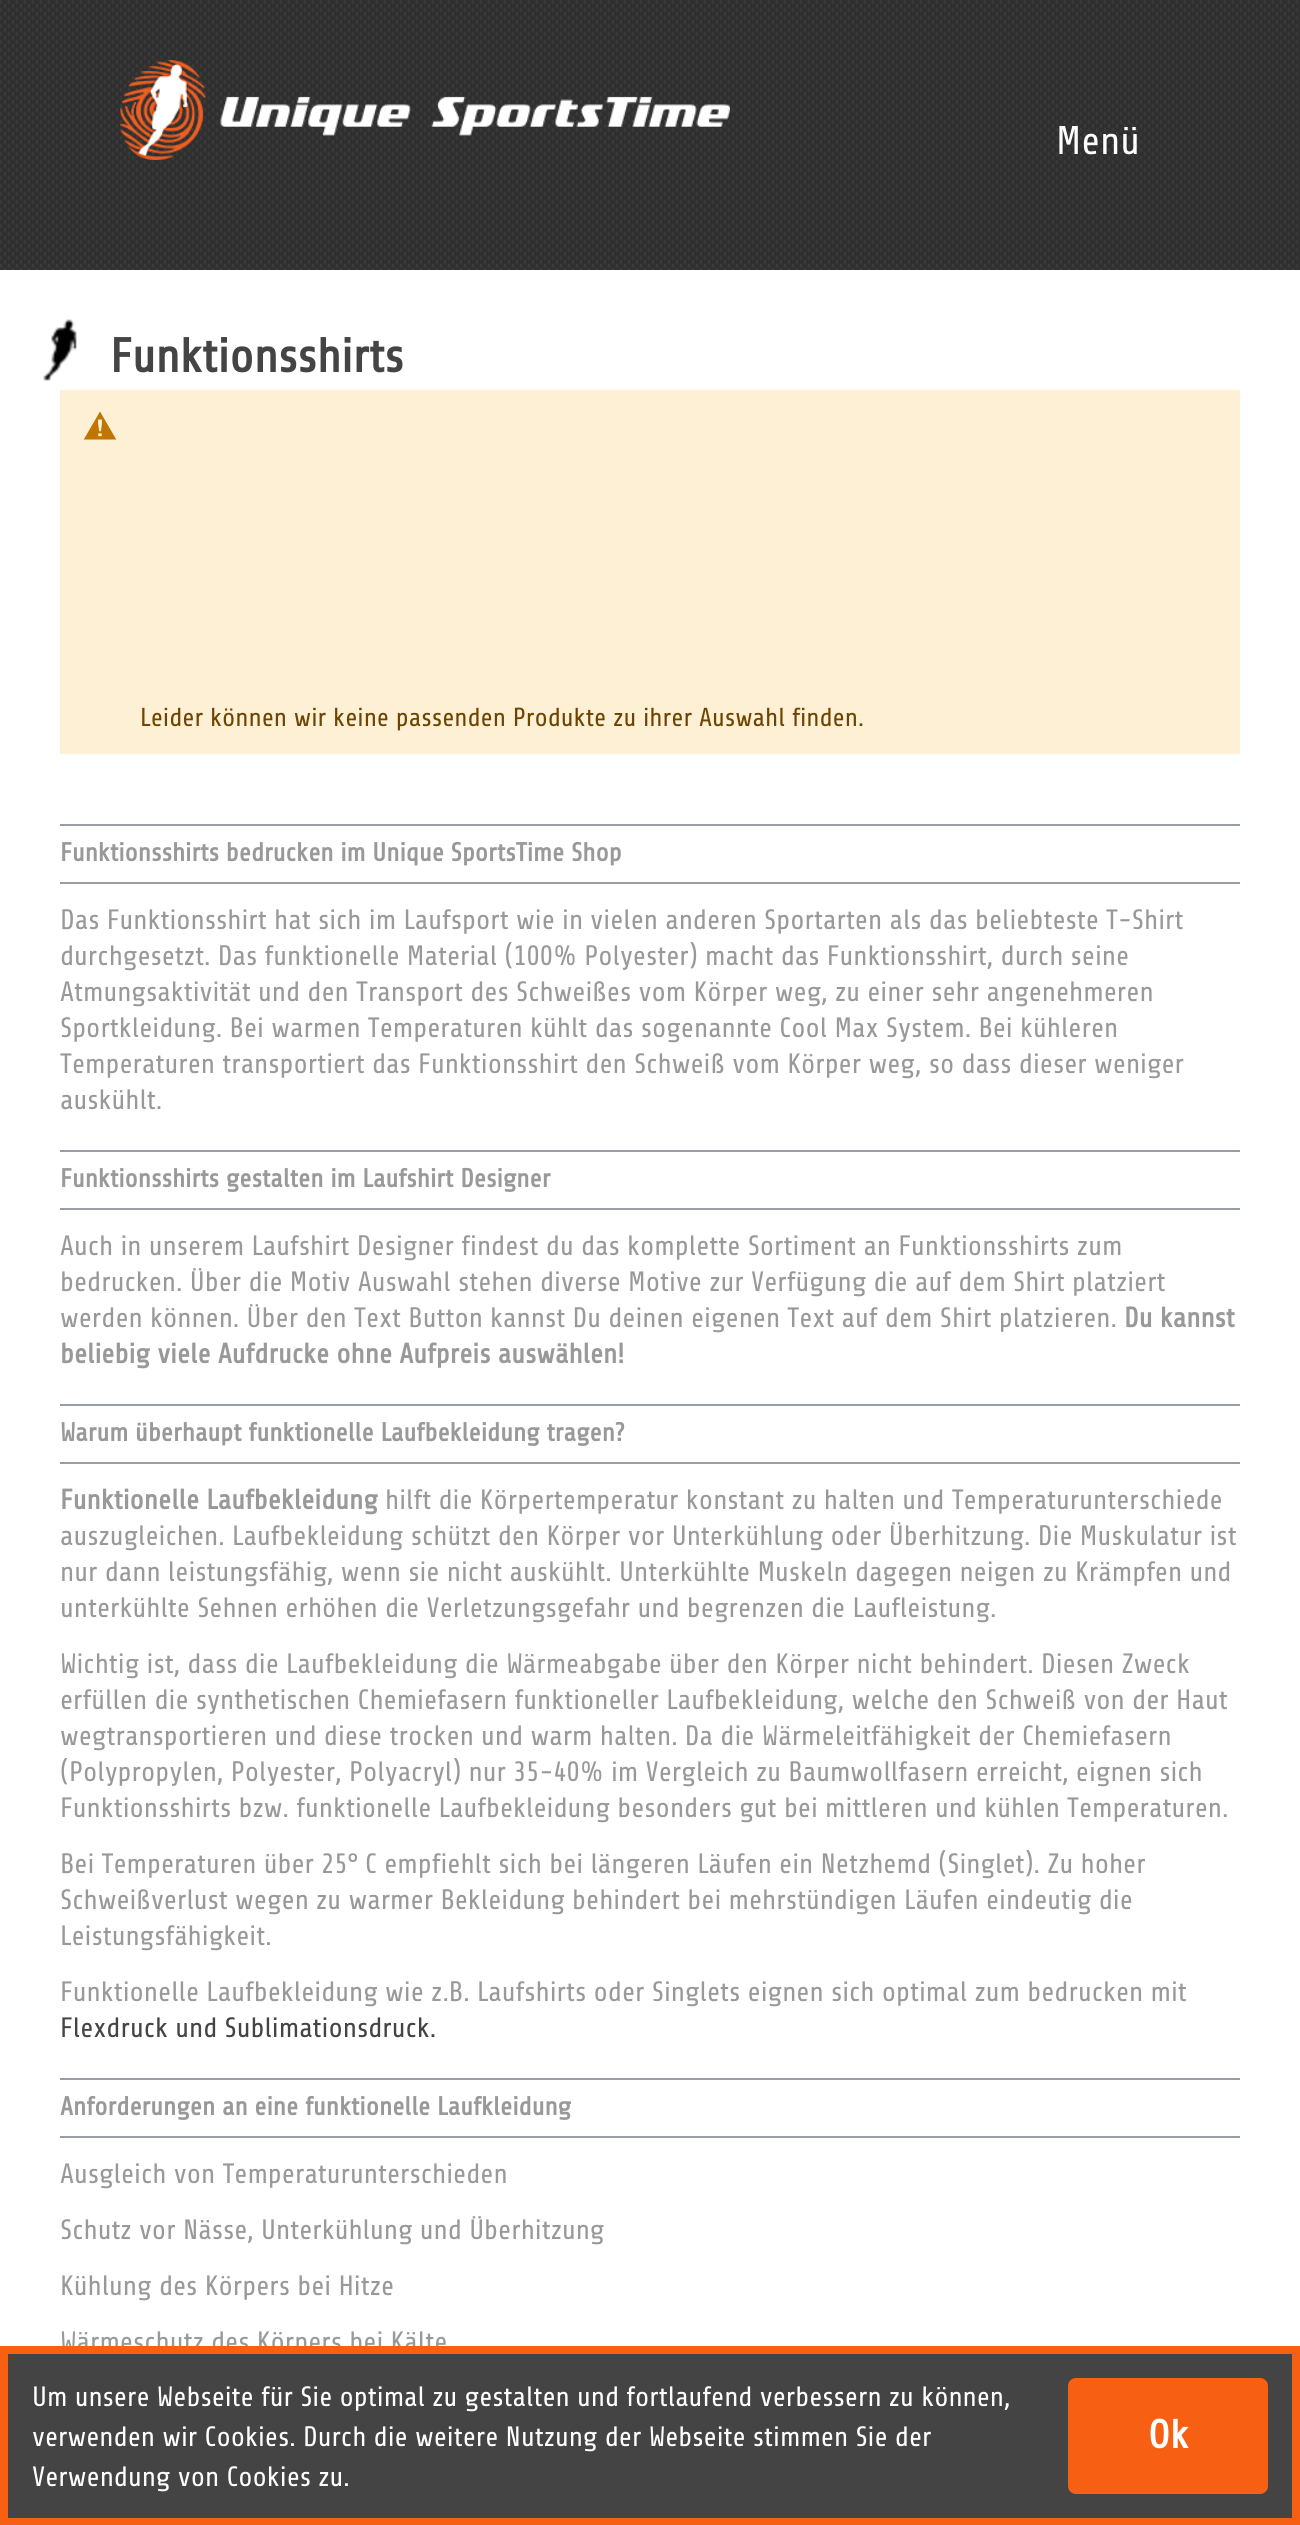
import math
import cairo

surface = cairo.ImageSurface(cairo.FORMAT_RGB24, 1300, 2525)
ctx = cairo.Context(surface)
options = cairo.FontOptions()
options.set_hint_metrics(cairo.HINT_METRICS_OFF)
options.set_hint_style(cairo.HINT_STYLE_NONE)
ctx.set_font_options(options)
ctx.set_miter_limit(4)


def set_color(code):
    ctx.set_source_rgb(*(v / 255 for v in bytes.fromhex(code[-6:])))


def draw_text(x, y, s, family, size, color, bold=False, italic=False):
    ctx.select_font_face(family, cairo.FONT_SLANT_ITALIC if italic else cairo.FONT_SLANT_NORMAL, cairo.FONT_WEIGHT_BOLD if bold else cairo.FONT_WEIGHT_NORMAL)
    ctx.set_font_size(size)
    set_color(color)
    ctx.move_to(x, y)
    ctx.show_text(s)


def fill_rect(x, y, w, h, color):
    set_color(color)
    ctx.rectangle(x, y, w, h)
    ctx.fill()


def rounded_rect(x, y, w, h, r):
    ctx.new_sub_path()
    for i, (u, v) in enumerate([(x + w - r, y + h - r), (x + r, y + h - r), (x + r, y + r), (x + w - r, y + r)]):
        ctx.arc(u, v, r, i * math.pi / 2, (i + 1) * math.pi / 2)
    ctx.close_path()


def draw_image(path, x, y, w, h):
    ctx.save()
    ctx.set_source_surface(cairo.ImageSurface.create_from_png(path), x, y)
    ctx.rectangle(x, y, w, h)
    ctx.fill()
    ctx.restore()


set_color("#ffffff")
ctx.paint()
draw_image("assets/img1.png", 0, 0, 1300, 270)
draw_image("assets/img2.png", 120, 60, 610, 100)
draw_text(1056, 154, "Menü", "Share", 40, "#ffffff")
draw_image("assets/img3.png", 43, 319, 34, 62)
draw_text(110, 372, "Funktionsshirts", "Share", 48, "#444444", bold=True)
fill_rect(60, 390, 1180, 364, "#fdf0d5")
draw_image("assets/img4.png", 83, 411, 34, 29)
draw_text(140, 726, "Leider können wir keine passenden Produkte zu ihrer Auswahl finden.", "Share", 26, "#6f4400")
fill_rect(60, 824, 1180, 2, "#999fa6")
fill_rect(60, 882, 1180, 2, "#999fa6")
draw_text(60, 861, "Funktionsshirts bedrucken im Unique SportsTime Shop", "Share", 26, "#999999", bold=True)
draw_text(60, 929, "Das Funktionsshirt hat sich im Laufsport wie in vielen anderen Sportarten als das beliebteste T-Shirt", "Share", 28, "#999999")
draw_text(60, 965, "durchgesetzt. Das funktionelle Material (100% Polyester) macht das Funktionsshirt, durch seine", "Share", 28, "#999999")
draw_text(60, 1001, "Atmungsaktivität und den Transport des Schweißes vom Körper weg, zu einer sehr angenehmeren", "Share", 28, "#999999")
draw_text(60, 1037, "Sportkleidung. Bei warmen Temperaturen kühlt das sogenannte Cool Max System. Bei kühleren", "Share", 28, "#999999")
draw_text(60, 1073, "Temperaturen transportiert das Funktionsshirt den Schweiß vom Körper weg, so dass dieser weniger", "Share", 28, "#999999")
draw_text(60, 1109, "auskühlt.", "Share", 28, "#999999")
fill_rect(60, 1150, 1180, 2, "#999fa6")
fill_rect(60, 1208, 1180, 2, "#999fa6")
draw_text(60, 1187, "Funktionsshirts gestalten im Laufshirt Designer", "Share", 26, "#999999", bold=True)
draw_text(60, 1255, "Auch in unserem Laufshirt Designer findest du das komplette Sortiment an Funktionsshirts zum", "Share", 28, "#999999")
draw_text(60, 1291, "bedrucken. Über die Motiv Auswahl stehen diverse Motive zur Verfügung die auf dem Shirt platziert", "Share", 28, "#999999")
draw_text(60, 1327, "werden können. Über den Text Button kannst Du deinen eigenen Text auf dem Shirt platzieren.", "Share", 28, "#999999")
draw_text(1124, 1327, "Du kannst", "Share", 28, "#999999", bold=True)
draw_text(60, 1363, "beliebig viele Aufdrucke ohne Aufpreis auswählen!", "Share", 28, "#999999", bold=True)
fill_rect(60, 1404, 1180, 2, "#999fa6")
fill_rect(60, 1462, 1180, 2, "#999fa6")
draw_text(60, 1441, "Warum überhaupt funktionelle Laufbekleidung tragen?", "Share", 26, "#999999", bold=True)
draw_text(60, 1509, "Funktionelle Laufbekleidung", "Share", 28, "#999999", bold=True)
draw_text(385, 1509, "hilft die Körpertemperatur konstant zu halten und Temperaturunterschiede", "Share", 28, "#999999")
draw_text(60, 1545, "auszugleichen. Laufbekleidung schützt den Körper vor Unterkühlung oder Überhitzung. Die Muskulatur ist", "Share", 28, "#999999")
draw_text(60, 1581, "nur dann leistungsfähig, wenn sie nicht auskühlt. Unterkühlte Muskeln dagegen neigen zu Krämpfen und", "Share", 28, "#999999")
draw_text(60, 1617, "unterkühlte Sehnen erhöhen die Verletzungsgefahr und begrenzen die Laufleistung.", "Share", 28, "#999999")
draw_text(60, 1673, "Wichtig ist, dass die Laufbekleidung die Wärmeabgabe über den Körper nicht behindert. Diesen Zweck", "Share", 28, "#999999")
draw_text(60, 1709, "erfüllen die synthetischen Chemiefasern funktioneller Laufbekleidung, welche den Schweiß von der Haut", "Share", 28, "#999999")
draw_text(60, 1745, "wegtransportieren und diese trocken und warm halten. Da die Wärmeleitfähigkeit der Chemiefasern", "Share", 28, "#999999")
draw_text(60, 1781, "(Polypropylen, Polyester, Polyacryl) nur 35-40% im Vergleich zu Baumwollfasern erreicht, eignen sich", "Share", 28, "#999999")
draw_text(60, 1817, "Funktionsshirts bzw. funktionelle Laufbekleidung besonders gut bei mittleren und kühlen Temperaturen.", "Share", 28, "#999999")
draw_text(60, 1873, "Bei Temperaturen über 25° C empfiehlt sich bei längeren Läufen ein Netzhemd (Singlet). Zu hoher", "Share", 28, "#999999")
draw_text(60, 1909, "Schweißverlust wegen zu warmer Bekleidung behindert bei mehrstündigen Läufen eindeutig die", "Share", 28, "#999999")
draw_text(60, 1945, "Leistungsfähigkeit.", "Share", 28, "#999999")
draw_text(60, 2001, "Funktionelle Laufbekleidung wie z.B. Laufshirts oder Singlets eignen sich optimal zum bedrucken mit", "Share", 28, "#999999")
draw_text(60, 2037, "Flexdruck und Sublimationsdruck.", "Share", 28, "#444444")
fill_rect(60, 2078, 1180, 2, "#999fa6")
fill_rect(60, 2136, 1180, 2, "#999fa6")
draw_text(60, 2115, "Anforderungen an eine funktionelle Laufkleidung", "Share", 26, "#999999", bold=True)
draw_text(60, 2183, "Ausgleich von Temperaturunterschieden", "Share", 28, "#999999")
draw_text(60, 2239, "Schutz vor Nässe, Unterkühlung und Überhitzung", "Share", 28, "#999999")
draw_text(60, 2295, "Kühlung des Körpers bei Hitze", "Share", 28, "#999999")
draw_text(60, 2351, "Wärmeschutz des Körpers bei Kälte", "Share", 28, "#999999")
set_color("#444444")
ctx.rectangle(4, 2350, 1292, 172)
ctx.fill_preserve()
set_color("#f75f13")
ctx.set_line_width(8)
ctx.stroke()
draw_text(32, 2406, "Um unsere Webseite für Sie optimal zu gestalten und fortlaufend verbessern zu können,", "Share", 28, "#ffffff")
draw_text(32, 2446, "verwenden wir Cookies. Durch die weitere Nutzung der Webseite stimmen Sie der", "Share", 28, "#ffffff")
draw_text(32, 2486, "Verwendung von Cookies zu.", "Share", 28, "#ffffff")
set_color("#f75f13")
rounded_rect(1068, 2378, 200, 116, 8)
ctx.fill()
draw_text(1148, 2448, "Ok", "Share", 40, "#ffffff", bold=True)
surface.write_to_png("output.png")
